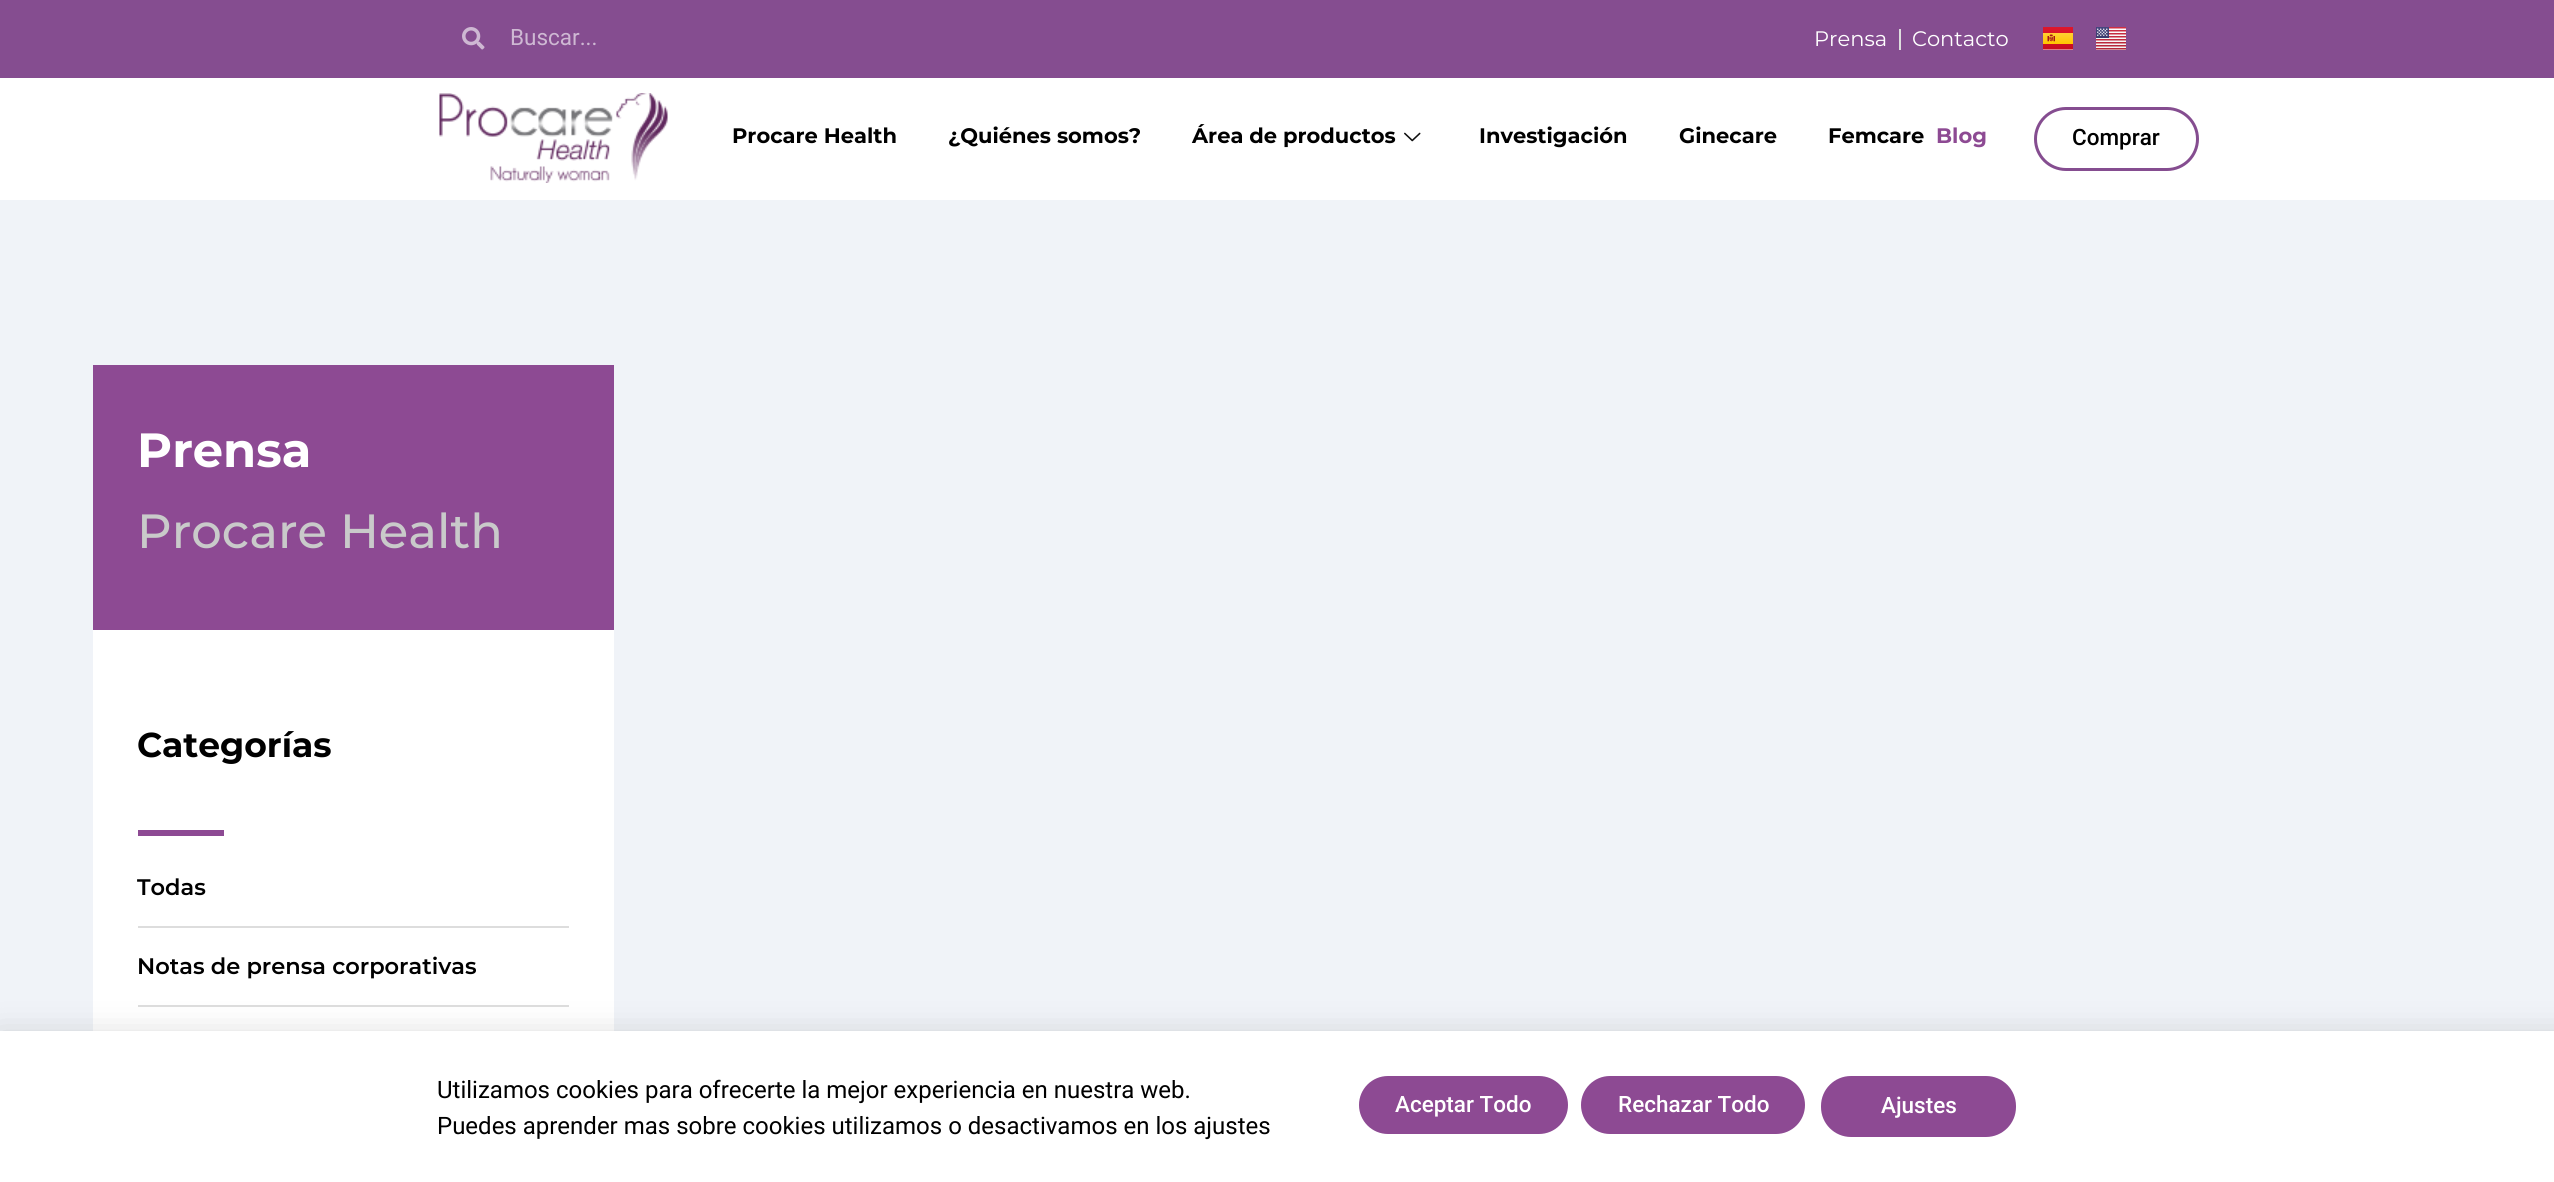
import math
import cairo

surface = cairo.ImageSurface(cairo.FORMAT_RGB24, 2554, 1182)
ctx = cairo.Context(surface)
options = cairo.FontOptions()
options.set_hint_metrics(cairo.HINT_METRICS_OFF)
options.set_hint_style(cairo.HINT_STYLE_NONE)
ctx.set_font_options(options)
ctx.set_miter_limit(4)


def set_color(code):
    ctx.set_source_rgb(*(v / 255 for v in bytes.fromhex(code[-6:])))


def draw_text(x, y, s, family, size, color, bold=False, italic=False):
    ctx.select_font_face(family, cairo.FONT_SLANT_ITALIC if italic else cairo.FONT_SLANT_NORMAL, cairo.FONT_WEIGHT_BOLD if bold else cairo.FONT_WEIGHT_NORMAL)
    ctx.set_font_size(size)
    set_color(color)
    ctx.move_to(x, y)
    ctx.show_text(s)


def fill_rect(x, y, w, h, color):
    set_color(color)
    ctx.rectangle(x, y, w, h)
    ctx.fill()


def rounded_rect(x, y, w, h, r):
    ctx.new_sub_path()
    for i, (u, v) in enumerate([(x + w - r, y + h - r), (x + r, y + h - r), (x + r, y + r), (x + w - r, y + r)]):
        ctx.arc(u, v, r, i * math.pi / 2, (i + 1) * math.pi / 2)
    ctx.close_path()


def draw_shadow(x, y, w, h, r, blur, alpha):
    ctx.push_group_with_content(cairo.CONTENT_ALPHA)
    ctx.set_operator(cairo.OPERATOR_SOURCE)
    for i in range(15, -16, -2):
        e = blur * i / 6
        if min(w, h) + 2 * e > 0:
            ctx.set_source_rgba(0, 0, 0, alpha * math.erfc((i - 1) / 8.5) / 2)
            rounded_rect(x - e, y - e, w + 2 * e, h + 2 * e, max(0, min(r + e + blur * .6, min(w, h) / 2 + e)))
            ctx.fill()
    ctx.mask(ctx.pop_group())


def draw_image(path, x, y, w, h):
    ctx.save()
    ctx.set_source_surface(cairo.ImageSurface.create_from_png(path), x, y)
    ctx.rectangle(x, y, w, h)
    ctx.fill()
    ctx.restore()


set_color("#ffffff")
ctx.paint()
fill_rect(0, 0, 2554, 78, "#854d90")
draw_image("assets/img1.png", 462, 27, 23, 23)
draw_text(510, 45, "Buscar...", "Roboto", 22.5, "#ceb8d3")
draw_text(1814, 46, "Prensa", "Montserrat", 21, "#ffffff")
fill_rect(1899, 29, 2, 21, "#dddddd")
draw_text(1912, 46, "Contacto", "Montserrat", 21, "#ffffff")
draw_image("assets/img2.png", 2043, 27, 30, 23)
draw_image("assets/img3.png", 2096, 27, 30, 23)
draw_image("assets/img4.png", 439, 93, 229, 90)
draw_text(732, 143, "Procare Health", "Montserrat", 21, "#000000", bold=True)
draw_text(948, 143, "¿Quiénes somos?", "Montserrat", 21, "#000000", bold=True)
draw_text(1192, 143, "Área de productos", "Montserrat", 21, "#000000", bold=True)
draw_image("assets/img5.png", 1404, 132, 17, 10)
draw_text(1479, 143, "Investigación", "Montserrat", 21, "#000000", bold=True)
draw_text(1679, 143, "Ginecare", "Montserrat", 21, "#000000", bold=True)
draw_text(1828, 143, "Femcare", "Montserrat", 21, "#000000", bold=True)
draw_text(1936, 143, "Blog", "Montserrat", 21, "#8d4a93", bold=True)
rounded_rect(2035.5, 108.5, 162, 61, 30.5)
set_color("#854d90")
ctx.set_line_width(3)
ctx.stroke()
draw_text(2072, 145, "Comprar", "Roboto Medium", 22.5, "#000000")
fill_rect(0, 200, 2554, 831, "#f0f3f8")
fill_rect(93, 630, 521, 401, "#ffffff")
fill_rect(93, 365, 521, 265, "#8d4a93")
draw_text(137, 467, "Prensa", "Montserrat", 48, "#ffffff", bold=True)
draw_text(137, 548, "Procare Health", "Montserrat Medium", 48, "#c9caca")
draw_text(137, 757, "Categorías", "Montserrat", 34.5, "#000000", bold=True)
fill_rect(138, 830, 86, 6, "#8d4a93")
draw_text(137, 895, "Todas", "Montserrat SemiBold", 22.5, "#000000")
fill_rect(138, 926, 431, 2, "#dddddd")
draw_text(137, 974, "Notas de prensa corporativas", "Montserrat SemiBold", 22.5, "#000000")
fill_rect(138, 1005, 431, 2, "#dddddd")
set_color("#000000")
draw_shadow(-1, 1038, 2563, 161, 0, 17, 0.2)
fill_rect(0, 1031, 2554, 151, "#ffffff")
draw_text(437, 1098, "Utilizamos cookies para ofrecerte la mejor experiencia en nuestra web.", "Roboto", 24, "#000000")
draw_text(437, 1134, "Puedes aprender mas sobre cookies utilizamos o desactivamos en los ajustes", "Roboto", 24, "#000000")
set_color("#8d4a93")
rounded_rect(1359, 1076, 209, 58, 29)
ctx.fill()
draw_text(1395, 1112, "Aceptar Todo", "Roboto Medium", 22.5, "#ffffff")
set_color("#8d4a93")
rounded_rect(1581, 1076, 224, 58, 29)
ctx.fill()
draw_text(1618, 1112, "Rechazar Todo", "Roboto Medium", 22.5, "#ffffff")
set_color("#8d4a93")
rounded_rect(1821, 1076, 195, 61, 30)
ctx.fill()
draw_text(1881, 1113, "Ajustes", "Roboto Medium", 22.5, "#ffffff")
surface.write_to_png("output.png")
